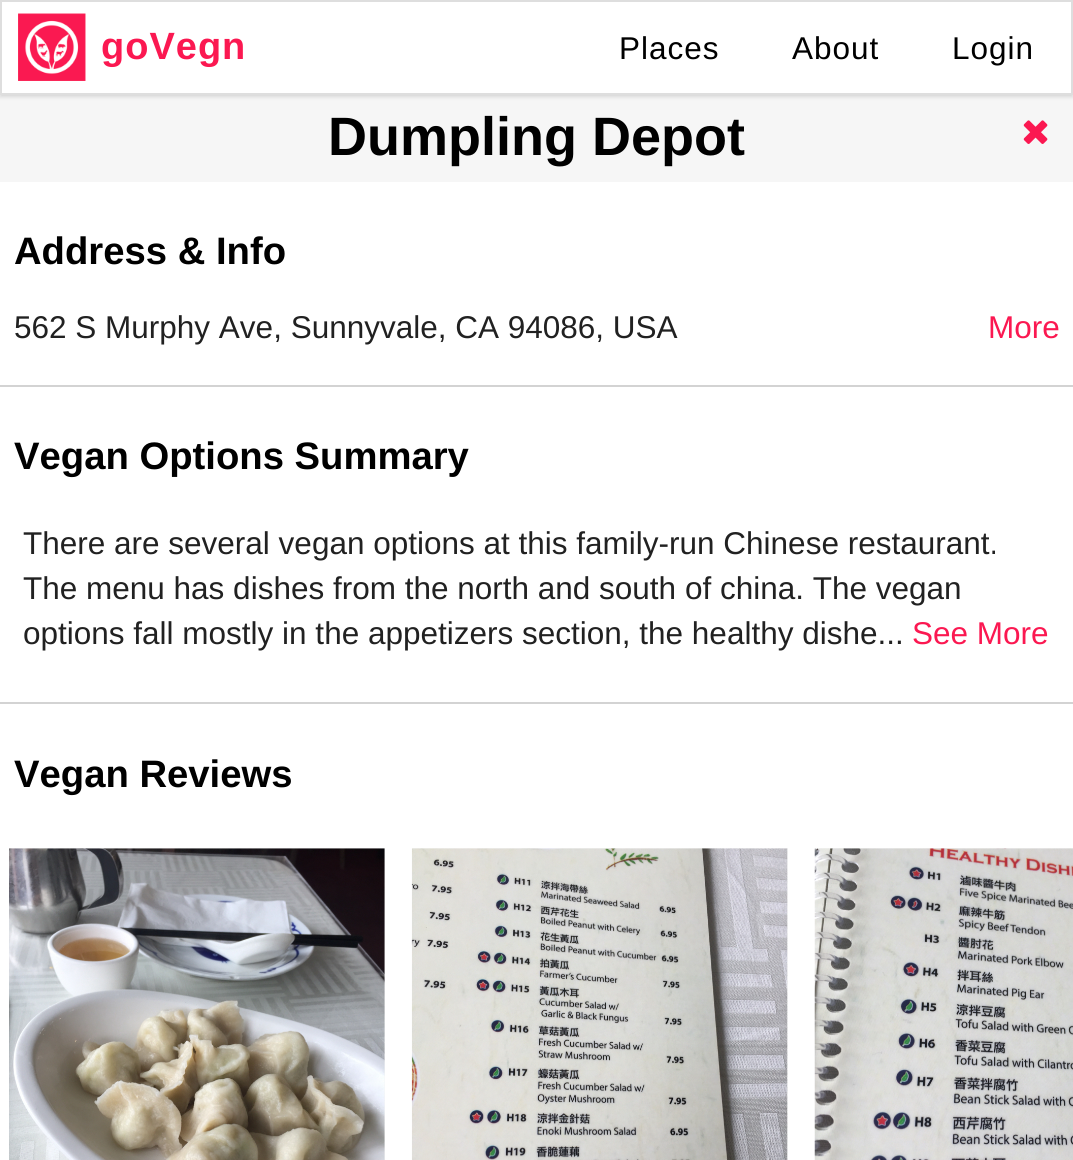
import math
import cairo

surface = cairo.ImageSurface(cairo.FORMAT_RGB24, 1073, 1160)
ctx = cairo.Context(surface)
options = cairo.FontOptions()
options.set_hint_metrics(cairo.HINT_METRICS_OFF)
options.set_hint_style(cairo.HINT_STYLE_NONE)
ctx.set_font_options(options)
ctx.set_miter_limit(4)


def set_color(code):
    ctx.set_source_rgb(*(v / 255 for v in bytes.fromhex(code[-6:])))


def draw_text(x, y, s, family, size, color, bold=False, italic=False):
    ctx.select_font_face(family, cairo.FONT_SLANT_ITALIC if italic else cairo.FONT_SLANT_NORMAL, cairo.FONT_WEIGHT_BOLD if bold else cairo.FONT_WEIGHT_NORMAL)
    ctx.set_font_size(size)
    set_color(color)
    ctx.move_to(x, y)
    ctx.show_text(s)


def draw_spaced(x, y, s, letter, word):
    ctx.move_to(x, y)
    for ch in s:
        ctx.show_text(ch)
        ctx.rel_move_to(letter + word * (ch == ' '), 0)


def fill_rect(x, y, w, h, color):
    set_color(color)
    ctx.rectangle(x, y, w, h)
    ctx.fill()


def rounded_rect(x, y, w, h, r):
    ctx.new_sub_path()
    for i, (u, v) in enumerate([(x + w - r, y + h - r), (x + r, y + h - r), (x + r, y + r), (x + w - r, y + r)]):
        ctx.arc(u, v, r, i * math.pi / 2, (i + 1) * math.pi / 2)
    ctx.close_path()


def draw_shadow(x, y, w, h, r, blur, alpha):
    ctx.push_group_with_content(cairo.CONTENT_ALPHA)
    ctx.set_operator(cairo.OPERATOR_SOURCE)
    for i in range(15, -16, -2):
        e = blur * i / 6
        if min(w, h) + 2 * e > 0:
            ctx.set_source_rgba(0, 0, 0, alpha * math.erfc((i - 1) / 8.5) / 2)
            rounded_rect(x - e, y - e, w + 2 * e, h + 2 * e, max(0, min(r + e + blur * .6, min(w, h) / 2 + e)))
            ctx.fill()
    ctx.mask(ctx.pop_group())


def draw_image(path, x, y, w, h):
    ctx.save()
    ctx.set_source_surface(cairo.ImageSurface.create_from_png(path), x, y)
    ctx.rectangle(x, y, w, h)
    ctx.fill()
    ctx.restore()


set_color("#ffffff")
ctx.paint()
fill_rect(0, 95, 1073, 87, "#f6f6f6")
set_color("#222426")
draw_shadow(0, 2, 1073, 95, 0, 2, 0.15)
set_color("#ffffff")
ctx.rectangle(1, 1, 1071, 93)
ctx.fill_preserve()
set_color("#dedede")
ctx.stroke()
draw_image("assets/img1.png", 18, 13, 68, 68)
ctx.select_font_face("Liberation Sans", cairo.FONT_SLANT_NORMAL, cairo.FONT_WEIGHT_BOLD)
ctx.set_font_size(38)
set_color("#fb1851")
draw_spaced(101, 59, "goVegn", 1, 0)
ctx.select_font_face("Liberation Sans")
ctx.set_font_size(31.5)
set_color("#000000")
draw_spaced(619, 59, "Places", 1, 0)
draw_spaced(792, 59, "About", 1, 0)
draw_spaced(952, 59, "Login", 1, 0)
draw_text(328, 155, "Dumpling Depot", "Liberation Sans", 54, "#000000", bold=True)
draw_image("assets/img2.png", 1023, 120, 25, 24)
draw_text(14, 264, "Address & Info", "Liberation Sans", 38.25, "#000000", bold=True)
draw_text(14, 338, "562 S Murphy Ave, Sunnyvale, CA 94086, USA", "Liberation Sans", 31.5, "#212121")
draw_text(988, 338, "More", "Liberation Sans", 31.5, "#fb1851")
fill_rect(0, 385, 1073, 2, "#d3d3d3")
draw_text(14, 469, "Vegan Options Summary", "Liberation Sans", 38.25, "#000000", bold=True)
draw_text(23, 554, "There are several vegan options at this family-run Chinese restaurant.", "Liberation Sans", 31.5, "#212121")
draw_text(23, 599, "The menu has dishes from the north and south of china. The vegan", "Liberation Sans", 31.5, "#212121")
draw_text(23, 644, "options fall mostly in the appetizers section, the healthy dishe...", "Liberation Sans", 31.5, "#212121")
draw_text(912, 644, "See More", "Liberation Sans", 31.5, "#fb1851")
fill_rect(0, 702, 1073, 2, "#d3d3d3")
draw_text(14, 787, "Vegan Reviews", "Liberation Sans", 38.25, "#000000", bold=True)
fill_rect(9, 848, 376, 312, "#f6f6f6")
draw_image("assets/img3.png", 9, 848, 376, 312)
fill_rect(412, 848, 376, 312, "#f6f6f6")
draw_image("assets/img4.png", 411, 848, 377, 312)
fill_rect(815, 848, 258, 1, "#f6f6f6")
draw_image("assets/img5.png", 814, 848, 259, 312)
surface.write_to_png("output.png")
